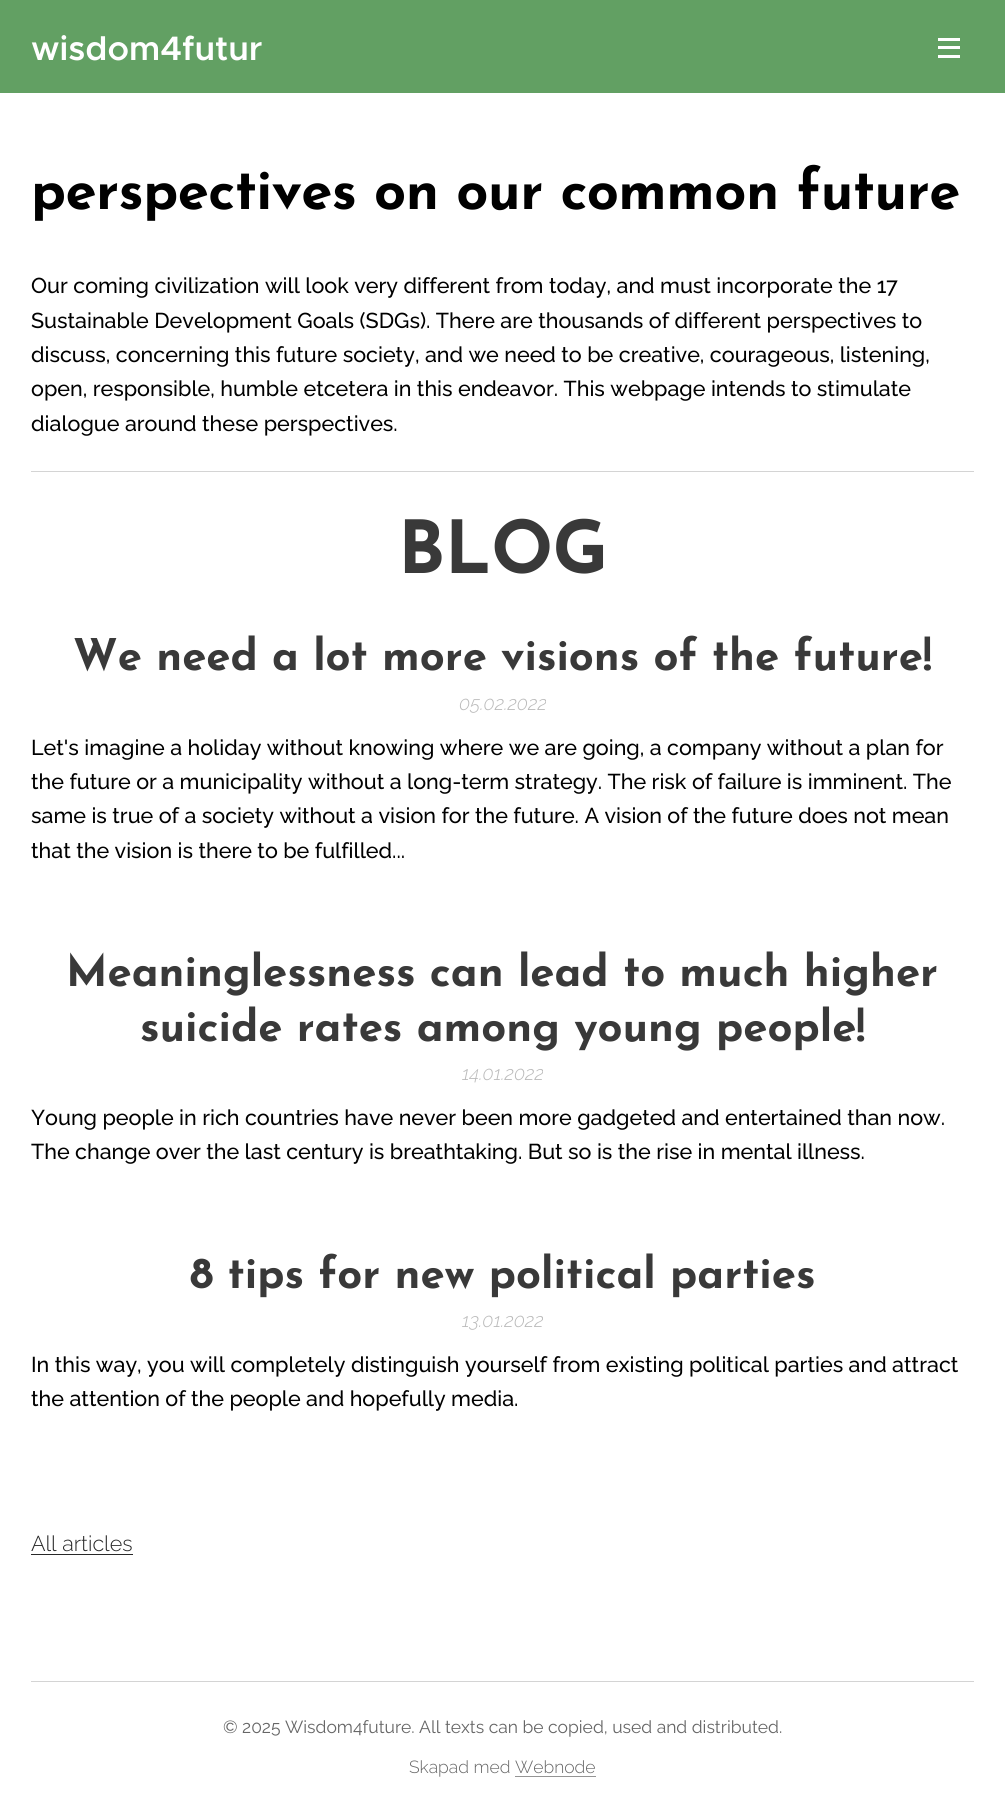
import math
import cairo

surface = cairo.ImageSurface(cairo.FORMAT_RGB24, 1005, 1812)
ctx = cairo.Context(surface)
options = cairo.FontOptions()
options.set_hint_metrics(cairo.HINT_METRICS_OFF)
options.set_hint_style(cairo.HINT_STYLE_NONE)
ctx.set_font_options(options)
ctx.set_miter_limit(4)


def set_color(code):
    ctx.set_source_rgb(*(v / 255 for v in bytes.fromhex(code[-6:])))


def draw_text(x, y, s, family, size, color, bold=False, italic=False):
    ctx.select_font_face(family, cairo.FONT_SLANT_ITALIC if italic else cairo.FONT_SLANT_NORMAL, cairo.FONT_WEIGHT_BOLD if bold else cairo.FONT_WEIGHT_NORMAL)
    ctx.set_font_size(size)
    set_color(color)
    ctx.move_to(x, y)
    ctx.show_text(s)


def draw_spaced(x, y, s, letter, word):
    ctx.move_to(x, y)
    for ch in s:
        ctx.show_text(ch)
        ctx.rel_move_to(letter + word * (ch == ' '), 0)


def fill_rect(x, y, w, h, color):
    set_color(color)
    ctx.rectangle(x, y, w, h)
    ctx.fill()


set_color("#ffffff")
ctx.paint()
fill_rect(0, 0, 1005, 93, "#62a063")
draw_text(31, 60, "wisdom4futur", "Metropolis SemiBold", 34, "#ffffff")
fill_rect(938, 46, 22, 3, "#ffffff")
fill_rect(938, 38, 22, 3, "#ffffff")
fill_rect(938, 55, 22, 3, "#ffffff")
ctx.select_font_face("Josefin Sans", cairo.FONT_SLANT_NORMAL, cairo.FONT_WEIGHT_BOLD)
ctx.set_font_size(56.25)
set_color("#000000")
draw_spaced(31, 209, "perspectives on our common future", -0.55, 0)
draw_text(31, 293, "Our coming civilization will look very different from today, and must incorporate the 17", "Raleway Medium", 21.5, "#000000")
draw_text(31, 328, "Sustainable Development Goals (SDGs). There are thousands of different perspectives to", "Raleway Medium", 21.5, "#000000")
draw_text(31, 362, "discuss, concerning this future society, and we need to be creative, courageous, listening,", "Raleway Medium", 21.5, "#000000")
draw_text(31, 396, "open, responsible, humble etcetera in this endeavor. This webpage intends to stimulate", "Raleway Medium", 21.5, "#000000")
draw_text(31, 431, "dialogue around these perspectives.", "Raleway Medium", 21.5, "#000000")
fill_rect(31, 471, 943, 1, "#d4d4d4")
ctx.select_font_face("Josefin Sans", cairo.FONT_SLANT_NORMAL, cairo.FONT_WEIGHT_BOLD)
ctx.set_font_size(73)
set_color("#393939")
draw_spaced(398, 573, "BLOG", -0.55, 0)
draw_text(73, 670, "We need a lot more visions of the future!", "Josefin Sans", 43.75, "#393939", bold=True)
draw_text(459, 710, "05.02.2022", "Raleway Light", 19, "#bababa", italic=True)
draw_text(31, 755, "Let's imagine a holiday without knowing where we are going, a company without a plan for", "Raleway Medium", 21.5, "#000000")
draw_text(31, 789, "the future or a municipality without a long-term strategy. The risk of failure is imminent. The", "Raleway Medium", 21.5, "#000000")
draw_text(31, 823, "same is true of a society without a vision for the future. A vision of the future does not mean", "Raleway Medium", 21.5, "#000000")
draw_text(31, 858, "that the vision is there to be fulfilled...", "Raleway Medium", 21.5, "#000000")
draw_text(66, 986, "Meaninglessness can lead to much higher", "Josefin Sans", 43.75, "#393939", bold=True)
draw_text(140, 1041, "suicide rates among young people!", "Josefin Sans", 43.75, "#393939", bold=True)
draw_text(462, 1080, "14.01.2022", "Raleway Light", 19, "#bababa", italic=True)
draw_text(31, 1125, "Young people in rich countries have never been more gadgeted and entertained than now.", "Raleway Medium", 21.5, "#000000")
draw_text(31, 1159, "The change over the last century is breathtaking. But so is the rise in mental illness.", "Raleway Medium", 21.5, "#000000")
draw_text(190, 1288, "8 tips for new political parties", "Josefin Sans", 43.75, "#393939", bold=True)
draw_text(462, 1327, "13.01.2022", "Raleway Light", 19, "#bababa", italic=True)
draw_text(31, 1372, "In this way, you will completely distinguish yourself from existing political parties and attract", "Raleway Medium", 21.5, "#000000")
draw_text(31, 1406, "the attention of the people and hopefully media.", "Raleway Medium", 21.5, "#000000")
draw_text(31, 1551, "All articles", "Raleway Light", 21.5, "#282828")
fill_rect(31, 1554, 102, 1, "#282828")
fill_rect(31, 1681, 943, 1, "#d4d4d4")
draw_text(223, 1733, "© 2025 Wisdom4future. All texts can be copied, used and distributed.", "Raleway", 17.5, "#666666")
draw_text(409, 1773, "Skapad med Webnode", "Raleway Light", 17.5, "#666666")
fill_rect(515, 1776, 81, 1, "#949494")
surface.write_to_png("output.png")
